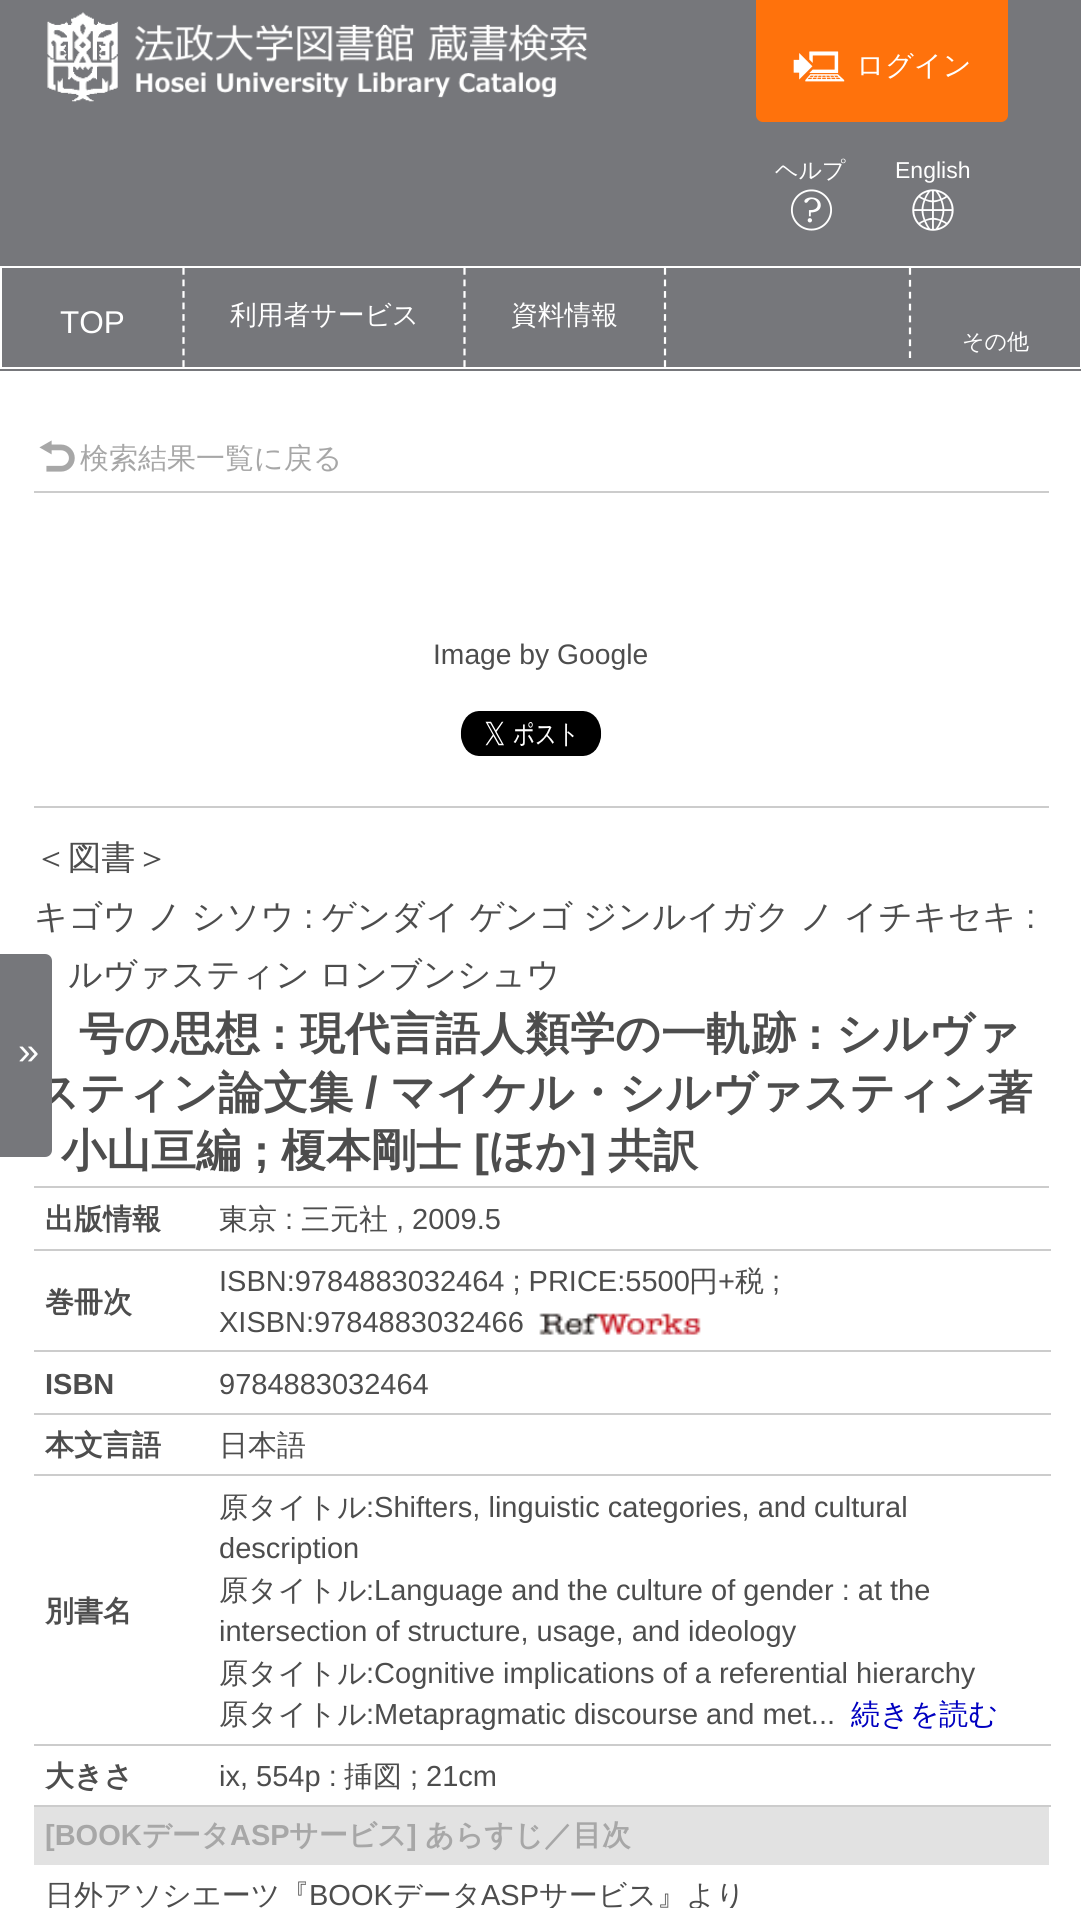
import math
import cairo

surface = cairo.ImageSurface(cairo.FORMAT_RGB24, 1081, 1908)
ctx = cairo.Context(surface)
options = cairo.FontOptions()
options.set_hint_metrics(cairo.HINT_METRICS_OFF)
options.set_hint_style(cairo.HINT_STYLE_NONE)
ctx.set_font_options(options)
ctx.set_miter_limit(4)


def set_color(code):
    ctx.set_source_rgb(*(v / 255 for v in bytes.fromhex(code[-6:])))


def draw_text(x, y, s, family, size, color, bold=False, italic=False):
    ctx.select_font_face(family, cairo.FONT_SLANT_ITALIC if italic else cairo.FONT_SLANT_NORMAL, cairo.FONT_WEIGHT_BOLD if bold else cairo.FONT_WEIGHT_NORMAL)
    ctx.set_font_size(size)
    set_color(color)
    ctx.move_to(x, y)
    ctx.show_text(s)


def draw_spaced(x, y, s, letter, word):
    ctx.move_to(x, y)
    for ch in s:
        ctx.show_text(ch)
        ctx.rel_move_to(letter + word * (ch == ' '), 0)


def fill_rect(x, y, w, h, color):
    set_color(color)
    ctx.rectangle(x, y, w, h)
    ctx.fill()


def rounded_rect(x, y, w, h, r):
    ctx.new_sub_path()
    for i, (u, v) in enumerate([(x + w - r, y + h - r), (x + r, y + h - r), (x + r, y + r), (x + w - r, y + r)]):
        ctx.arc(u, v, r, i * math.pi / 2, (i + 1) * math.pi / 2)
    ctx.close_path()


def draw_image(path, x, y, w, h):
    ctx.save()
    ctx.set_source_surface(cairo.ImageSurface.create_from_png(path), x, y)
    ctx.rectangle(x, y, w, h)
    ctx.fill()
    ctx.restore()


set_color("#ffffff")
ctx.paint()
fill_rect(0, 0, 1081, 266, "#76777b")
draw_image("assets/img1.png", 47, 12, 541, 90)
set_color("#ff720c")
rounded_rect(757, -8, 250, 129, 6)
ctx.fill_preserve()
ctx.stroke()
draw_image("assets/img2.png", 793, 51, 52, 31)
draw_text(856, 75, "ログイン", "WenQuanYi Zen Hei Medium", 28.25, "#ffffff")
draw_text(775, 178, "ヘルプ", "WenQuanYi Zen Hei Medium", 23, "#ffffff")
draw_image("assets/img3.png", 790, 189, 42, 42)
draw_text(895, 178, "English", "Liberation Sans", 23, "#ffffff")
draw_image("assets/img4.png", 912, 189, 42, 42)
fill_rect(2, 268, 1078, 99, "#76777b")
ctx.new_path()
ctx.move_to(183.5, 268)
ctx.line_to(183.5, 367)
set_color("#ffffff")
ctx.set_line_width(2.2)
ctx.set_dash([6.75, 4.77])
ctx.stroke()
draw_text(60, 333, "TOP", "Liberation Sans", 31.5, "#ffffff")
ctx.new_path()
ctx.move_to(464.5, 268)
ctx.line_to(464.5, 367)
ctx.stroke()
draw_text(230, 324, "利用者サービス", "WenQuanYi Zen Hei Medium", 26.75, "#ffffff")
ctx.new_path()
ctx.move_to(665, 268)
ctx.line_to(665, 367)
ctx.stroke()
draw_text(511, 324, "資料情報", "WenQuanYi Zen Hei Medium", 26.75, "#ffffff")
ctx.new_path()
ctx.move_to(910, 268)
ctx.line_to(910, 358)
ctx.set_dash([6.75, 5.15])
ctx.stroke()
draw_text(962, 349, "その他", "WenQuanYi Zen Hei Medium", 22, "#ffffff")
fill_rect(0, 369, 1081, 2, "#76777b")
fill_rect(34, 491, 1015, 2, "#cccccc")
draw_image("assets/img5.png", 39, 440, 36, 32)
draw_text(80, 468, "検索結果一覧に戻る", "WenQuanYi Zen Hei Medium", 29, "#a7a7a7")
draw_text(433, 664, "Image by Google", "Liberation Sans", 28.25, "#4d4d4d")
draw_image("assets/img6.png", 460, 711, 142, 45)
fill_rect(34, 806, 1015, 2, "#cccccc")
draw_text(34, 1108, "スティン論文集", "WenQuanYi Zen Hei", 45, "#4d4d4d", bold=True)
set_color("#76777b")
ctx.new_path()
ctx.move_to(-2, 954)
ctx.line_to(45, 954)
ctx.curve_to(49, 954, 52, 957, 52, 961)
ctx.line_to(52, 1150)
ctx.curve_to(52, 1154, 49, 1157, 45, 1157)
ctx.line_to(-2, 1157)
ctx.close_path()
ctx.fill()
draw_text(18, 1064, "»", "Liberation Sans", 38, "#ffffff")
fill_rect(34, 1186, 1015, 2, "#cccccc")
draw_text(34, 869, "＜図書＞", "WenQuanYi Zen Hei Medium", 33.75, "#4d4d4d")
draw_spaced(34, 928, "キゴウ ノ シソウ", 0, -0.5)
draw_text(304, 928, ":", "Liberation Sans", 33.75, "#4d4d4d")
ctx.select_font_face("WenQuanYi Zen Hei Medium")
draw_spaced(322, 928, "ゲンダイ ゲンゴ ジンルイガク ノ イチキセキ", 0, -0.5)
draw_text(1026, 928, ":", "Liberation Sans", 33.75, "#4d4d4d")
ctx.select_font_face("WenQuanYi Zen Hei Medium")
draw_spaced(68, 986, "ルヴァスティン ロンブンシュウ", 0, -1)
draw_text(79, 1049, "号の思想", "WenQuanYi Zen Hei", 45, "#4d4d4d", bold=True)
draw_text(272, 1049, ":", "Liberation Sans", 45, "#4d4d4d", bold=True)
draw_text(300, 1049, "現代言語人類学の一軌跡", "WenQuanYi Zen Hei", 45, "#4d4d4d", bold=True)
draw_text(808, 1049, ":", "Liberation Sans", 45, "#4d4d4d", bold=True)
draw_text(836, 1049, "シルヴァ", "WenQuanYi Zen Hei", 45, "#4d4d4d", bold=True)
draw_text(365, 1108, "/", "Liberation Sans", 45, "#4d4d4d", bold=True)
draw_text(390, 1108, "マイケル・シルヴァスティン著", "WenQuanYi Zen Hei", 45, "#4d4d4d", bold=True)
draw_text(61, 1166, "小山亘編", "WenQuanYi Zen Hei", 45, "#4d4d4d", bold=True)
draw_text(254, 1166, ";", "Liberation Sans", 45, "#4d4d4d", bold=True)
draw_text(281, 1166, "榎本剛士", "WenQuanYi Zen Hei", 45, "#4d4d4d", bold=True)
draw_text(474, 1166, "[", "Liberation Sans", 45, "#4d4d4d", bold=True)
draw_text(489, 1166, "ほか", "WenQuanYi Zen Hei", 45, "#4d4d4d", bold=True)
draw_text(581, 1166, "]", "Liberation Sans", 45, "#4d4d4d", bold=True)
draw_text(608, 1166, "共訳", "WenQuanYi Zen Hei", 45, "#4d4d4d", bold=True)
draw_text(45, 1229, "出版情報", "WenQuanYi Zen Hei", 29, "#4d4d4d", bold=True)
fill_rect(34, 1249, 1017, 2, "#cccccc")
draw_text(219, 1229, "東京", "WenQuanYi Zen Hei Medium", 29, "#4d4d4d")
draw_text(285, 1229, ":", "Liberation Sans", 29, "#4d4d4d")
draw_text(301, 1229, "三元社", "WenQuanYi Zen Hei Medium", 29, "#4d4d4d")
draw_text(396, 1229, ", 2009.5", "Liberation Sans", 29, "#4d4d4d")
draw_text(45, 1312, "巻冊次", "WenQuanYi Zen Hei", 29, "#4d4d4d", bold=True)
fill_rect(34, 1350, 1017, 2, "#cccccc")
draw_text(219, 1291, "ISBN:9784883032464 ; PRICE:5500", "Liberation Sans", 29, "#4d4d4d")
draw_text(689, 1291, "円", "WenQuanYi Zen Hei Medium", 29, "#4d4d4d")
draw_text(718, 1291, "+", "Liberation Sans", 29, "#4d4d4d")
draw_text(735, 1291, "税", "WenQuanYi Zen Hei Medium", 29, "#4d4d4d")
draw_text(772, 1291, ";", "Liberation Sans", 29, "#4d4d4d")
draw_text(219, 1332, "XISBN:9784883032466", "Liberation Sans", 29, "#4d4d4d")
draw_image("assets/img7.png", 539, 1313, 162, 22)
draw_text(45, 1394, "ISBN", "Liberation Sans", 29, "#4d4d4d", bold=True)
fill_rect(34, 1413, 1017, 2, "#cccccc")
draw_text(219, 1394, "9784883032464", "Liberation Sans", 29, "#4d4d4d")
draw_text(45, 1455, "本文言語", "WenQuanYi Zen Hei", 29, "#4d4d4d", bold=True)
fill_rect(34, 1474, 1017, 2, "#cccccc")
draw_text(219, 1455, "日本語", "WenQuanYi Zen Hei Medium", 29, "#4d4d4d")
draw_text(45, 1621, "別書名", "WenQuanYi Zen Hei", 29, "#4d4d4d", bold=True)
fill_rect(34, 1744, 1017, 2, "#cccccc")
draw_text(219, 1517, "原タイトル", "WenQuanYi Zen Hei Medium", 29, "#4d4d4d")
draw_text(366, 1517, ":Shifters, linguistic categories, and cultural", "Liberation Sans", 29, "#4d4d4d")
draw_text(219, 1558, "description", "Liberation Sans", 29, "#4d4d4d")
draw_text(219, 1600, "原タイトル", "WenQuanYi Zen Hei Medium", 29, "#4d4d4d")
draw_text(366, 1600, ":Language and the culture of gender : at the", "Liberation Sans", 29, "#4d4d4d")
draw_text(219, 1641, "intersection of structure, usage, and ideology", "Liberation Sans", 29, "#4d4d4d")
draw_text(219, 1683, "原タイトル", "WenQuanYi Zen Hei Medium", 29, "#4d4d4d")
draw_text(366, 1683, ":Cognitive implications of a referential hierarchy", "Liberation Sans", 29, "#4d4d4d")
draw_text(219, 1724, "原タイトル", "WenQuanYi Zen Hei Medium", 29, "#4d4d4d")
draw_text(366, 1724, ":Metapragmatic discourse and met...", "Liberation Sans", 29, "#4d4d4d")
draw_text(851, 1724, "続きを読む", "WenQuanYi Zen Hei Medium", 29, "#0000c0")
draw_text(45, 1786, "大きさ", "WenQuanYi Zen Hei", 29, "#4d4d4d", bold=True)
fill_rect(34, 1805, 1017, 2, "#cccccc")
draw_text(219, 1786, "ix, 554p :", "Liberation Sans", 29, "#4d4d4d")
draw_text(344, 1786, "挿図", "WenQuanYi Zen Hei Medium", 29, "#4d4d4d")
draw_text(410, 1786, "; 21cm", "Liberation Sans", 29, "#4d4d4d")
fill_rect(34, 1807, 1015, 58, "#e2e2e2")
draw_text(45, 1845, "[BOOK", "Liberation Sans", 29, "#a7a7a7", bold=True)
draw_text(142, 1845, "データ", "WenQuanYi Zen Hei", 29, "#a7a7a7", bold=True)
draw_text(230, 1845, "ASP", "Liberation Sans", 29, "#a7a7a7", bold=True)
draw_text(289, 1845, "サービス", "WenQuanYi Zen Hei", 29, "#a7a7a7", bold=True)
draw_text(407, 1845, "]", "Liberation Sans", 29, "#a7a7a7", bold=True)
draw_text(425, 1845, "あらすじ／目次", "WenQuanYi Zen Hei", 29, "#a7a7a7", bold=True)
draw_text(45, 1905, "日外アソシエーツ『", "WenQuanYi Zen Hei Medium", 29, "#4d4d4d")
draw_text(309, 1905, "BOOK", "Liberation Sans", 29, "#4d4d4d")
draw_text(393, 1905, "データ", "WenQuanYi Zen Hei Medium", 29, "#4d4d4d")
draw_text(481, 1905, "ASP", "Liberation Sans", 29, "#4d4d4d")
draw_text(539, 1905, "サービス』より", "WenQuanYi Zen Hei Medium", 29, "#4d4d4d")
surface.write_to_png("output.png")
